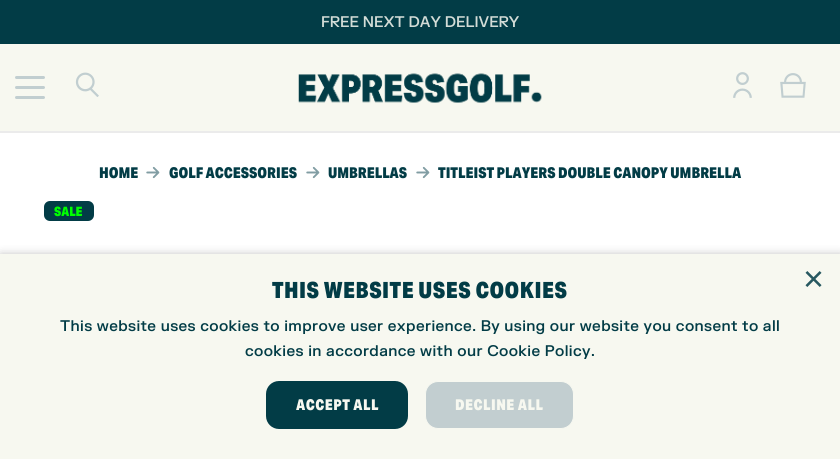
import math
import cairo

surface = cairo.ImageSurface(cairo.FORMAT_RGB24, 840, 459)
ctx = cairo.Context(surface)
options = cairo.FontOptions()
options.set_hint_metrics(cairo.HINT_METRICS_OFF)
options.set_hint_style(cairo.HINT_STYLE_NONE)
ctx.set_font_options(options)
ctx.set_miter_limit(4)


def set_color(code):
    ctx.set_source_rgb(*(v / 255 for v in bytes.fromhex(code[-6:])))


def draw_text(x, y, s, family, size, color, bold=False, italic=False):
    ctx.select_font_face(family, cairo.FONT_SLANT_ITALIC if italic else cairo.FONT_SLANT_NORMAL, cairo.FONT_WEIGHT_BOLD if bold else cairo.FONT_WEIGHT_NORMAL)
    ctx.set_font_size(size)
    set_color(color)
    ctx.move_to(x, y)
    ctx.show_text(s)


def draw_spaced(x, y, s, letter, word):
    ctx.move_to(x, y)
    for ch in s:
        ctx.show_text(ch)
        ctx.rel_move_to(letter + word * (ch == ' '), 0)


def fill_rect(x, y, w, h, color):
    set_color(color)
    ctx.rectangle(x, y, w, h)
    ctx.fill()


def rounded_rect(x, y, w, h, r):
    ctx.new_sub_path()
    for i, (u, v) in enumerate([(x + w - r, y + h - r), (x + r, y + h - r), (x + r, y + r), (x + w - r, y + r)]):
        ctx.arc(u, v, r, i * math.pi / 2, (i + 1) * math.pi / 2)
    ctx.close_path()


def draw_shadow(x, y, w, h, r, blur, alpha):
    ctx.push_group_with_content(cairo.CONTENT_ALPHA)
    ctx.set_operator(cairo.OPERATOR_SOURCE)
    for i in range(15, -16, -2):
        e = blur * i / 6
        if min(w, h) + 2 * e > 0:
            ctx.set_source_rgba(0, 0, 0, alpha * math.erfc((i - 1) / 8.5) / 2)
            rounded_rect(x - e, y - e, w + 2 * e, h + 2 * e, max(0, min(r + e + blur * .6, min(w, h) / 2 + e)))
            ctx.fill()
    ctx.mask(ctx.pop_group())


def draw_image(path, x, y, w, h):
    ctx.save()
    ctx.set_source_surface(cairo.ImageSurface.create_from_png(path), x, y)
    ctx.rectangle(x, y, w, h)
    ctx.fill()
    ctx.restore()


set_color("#ffffff")
ctx.paint()
fill_rect(0, 0, 840, 44, "#023c46")
draw_text(321, 27, "FREE NEXT DAY DELIVERY", "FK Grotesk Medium", 15, "#d3dcd7")
fill_rect(0, 131, 840, 2, "#ebebeb")
fill_rect(0, 44, 840, 87, "#f7f8f0")
set_color("#c1ced0")
rounded_rect(15, 86, 30, 3, 1.5)
ctx.fill()
rounded_rect(15, 76, 30, 3, 1.5)
ctx.fill()
rounded_rect(15, 96, 30, 3, 1.5)
ctx.fill()
draw_image("assets/img1.png", 75, 72, 24, 25)
draw_image("assets/img2.png", 298, 73, 244, 30)
draw_image("assets/img3.png", 733, 72, 19, 26)
draw_image("assets/img4.png", 780, 73, 26, 25)
draw_text(99, 178, "HOME", "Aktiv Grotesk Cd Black", 15, "#023c46")
draw_image("assets/img5.png", 146, 166, 14, 13)
draw_text(169, 178, "GOLF ACCESSORIES", "Aktiv Grotesk Cd Black", 15, "#023c46")
draw_image("assets/img5.png", 306, 166, 14, 13)
draw_text(328, 178, "UMBRELLAS", "Aktiv Grotesk Cd Black", 15, "#023c46")
draw_image("assets/img5.png", 416, 166, 14, 13)
draw_text(438, 178, "TITLEIST PLAYERS DOUBLE CANOPY UMBRELLA", "Aktiv Grotesk Cd Black", 15, "#023c46")
rounded_rect(44, 201, 50, 20, 6)
ctx.fill()
draw_text(54, 216, "SALE", "Aktiv Grotesk Cd Black", 13, "#00ff00")
set_color("#000000")
draw_shadow(1, 256, 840, 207, 0, 5, 0.35)
fill_rect(0, 254, 840, 205, "#f7f8f0")
draw_text(803, 291, "×", "Liberation Sans", 36, "#275860")
ctx.select_font_face("Aktiv Grotesk Cd Black")
ctx.set_font_size(22.5)
set_color("#023c46")
draw_spaced(272, 298, "THIS WEBSITE USES COOKIES", 0.5, 0)
ctx.select_font_face("FK Grotesk Medium")
ctx.set_font_size(15)
draw_spaced(60, 331, "This website uses cookies to improve user experience. By using our website you consent to all", 0.38, 0)
draw_spaced(245, 356, "cookies in accordance with our Cookie Policy.", 0.38, 0)
rounded_rect(266, 381, 142, 48, 13)
ctx.fill()
ctx.select_font_face("Aktiv Grotesk Cd Black")
set_color("#f7f8f0")
draw_spaced(296, 410, "ACCEPT ALL", 0.5, 0)
set_color("#c2ced0")
rounded_rect(425.5, 381.5, 148, 47, 12.5)
ctx.fill_preserve()
set_color("#f7f8f0")
ctx.set_line_width(1)
ctx.stroke()
draw_spaced(455, 410, "DECLINE ALL", 0.5, 0)
surface.write_to_png("output.png")
